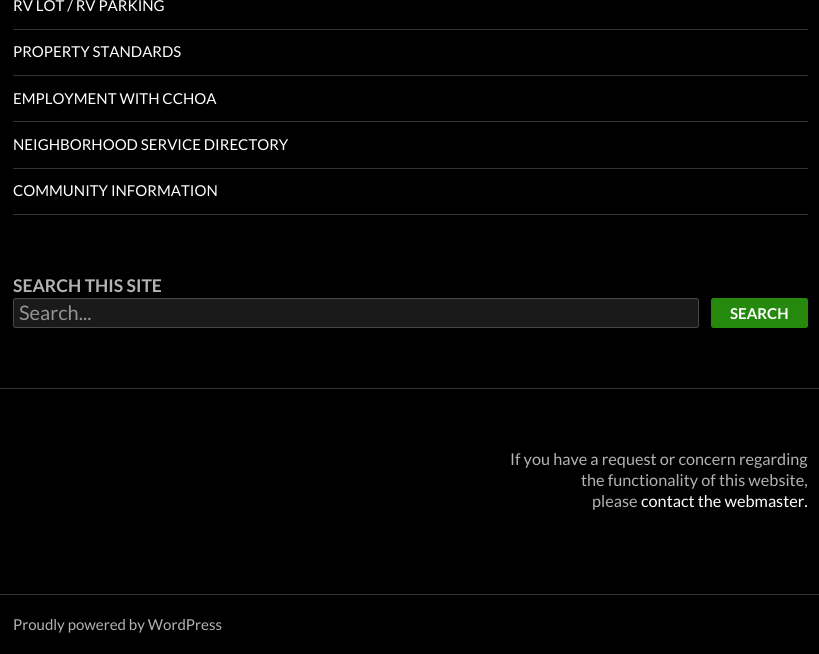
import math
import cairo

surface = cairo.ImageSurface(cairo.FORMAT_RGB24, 819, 654)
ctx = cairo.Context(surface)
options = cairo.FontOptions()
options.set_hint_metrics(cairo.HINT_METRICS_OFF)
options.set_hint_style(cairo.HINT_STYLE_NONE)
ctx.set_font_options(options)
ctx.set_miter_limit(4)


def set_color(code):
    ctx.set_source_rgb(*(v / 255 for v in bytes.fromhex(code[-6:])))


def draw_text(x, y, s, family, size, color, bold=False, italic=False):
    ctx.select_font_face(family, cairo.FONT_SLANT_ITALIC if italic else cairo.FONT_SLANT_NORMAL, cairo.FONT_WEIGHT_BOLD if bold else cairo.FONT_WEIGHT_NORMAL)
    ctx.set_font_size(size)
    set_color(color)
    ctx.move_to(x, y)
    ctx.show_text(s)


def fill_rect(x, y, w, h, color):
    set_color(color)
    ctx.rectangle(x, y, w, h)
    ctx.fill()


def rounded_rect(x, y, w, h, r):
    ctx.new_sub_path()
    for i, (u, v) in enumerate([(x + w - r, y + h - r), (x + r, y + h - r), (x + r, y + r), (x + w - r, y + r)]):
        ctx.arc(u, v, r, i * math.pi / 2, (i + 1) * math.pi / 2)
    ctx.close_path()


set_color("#000000")
ctx.paint()
fill_rect(0, 388, 819, 1, "#333333")
fill_rect(13, 214, 795, 1, "#333333")
draw_text(13, 11, "RV LOT / RV PARKING", "Lato", 15, "#ffffff")
fill_rect(13, 29, 795, 1, "#333333")
draw_text(13, 57, "PROPERTY STANDARDS", "Lato", 15, "#ffffff")
fill_rect(13, 75, 795, 1, "#333333")
draw_text(13, 104, "EMPLOYMENT WITH CCHOA", "Lato", 15, "#ffffff")
fill_rect(13, 121, 795, 1, "#333333")
draw_text(13, 150, "NEIGHBORHOOD SERVICE DIRECTORY", "Lato", 15, "#ffffff")
fill_rect(13, 168, 795, 1, "#333333")
draw_text(13, 196, "COMMUNITY INFORMATION", "Lato", 15, "#ffffff")
draw_text(13, 292, "SEARCH THIS SITE", "Lato", 17.5, "#b3b3b3", bold=True)
set_color("#1a1a1a")
rounded_rect(13, 298, 686, 30, 2.5)
ctx.fill()
rounded_rect(13.5, 298.5, 685, 29, 2)
ctx.set_source_rgba(1, 1, 1, 0.2)
ctx.set_line_width(1)
ctx.stroke()
draw_text(19, 320, "Search...", "Lato", 20, "#939393")
set_color("#24890d")
rounded_rect(711, 298, 97, 30, 2.5)
ctx.fill()
draw_text(730, 319, "SEARCH", "Lato", 15, "#ffffff", bold=True)
draw_text(510, 465, "If you have a request or concern regarding", "Lato", 16.25, "#b3b3b3")
draw_text(581, 486, "the functionality of this website,", "Lato", 16.25, "#b3b3b3")
draw_text(592, 507, "please", "Lato", 16.25, "#b3b3b3")
draw_text(641, 507, "contact the webmaster.", "Lato", 16.25, "#ffffff")
fill_rect(0, 594, 819, 1, "#333333")
draw_text(13, 630, "Proudly powered by WordPress", "Lato", 15, "#b3b3b3")
surface.write_to_png("output.png")
